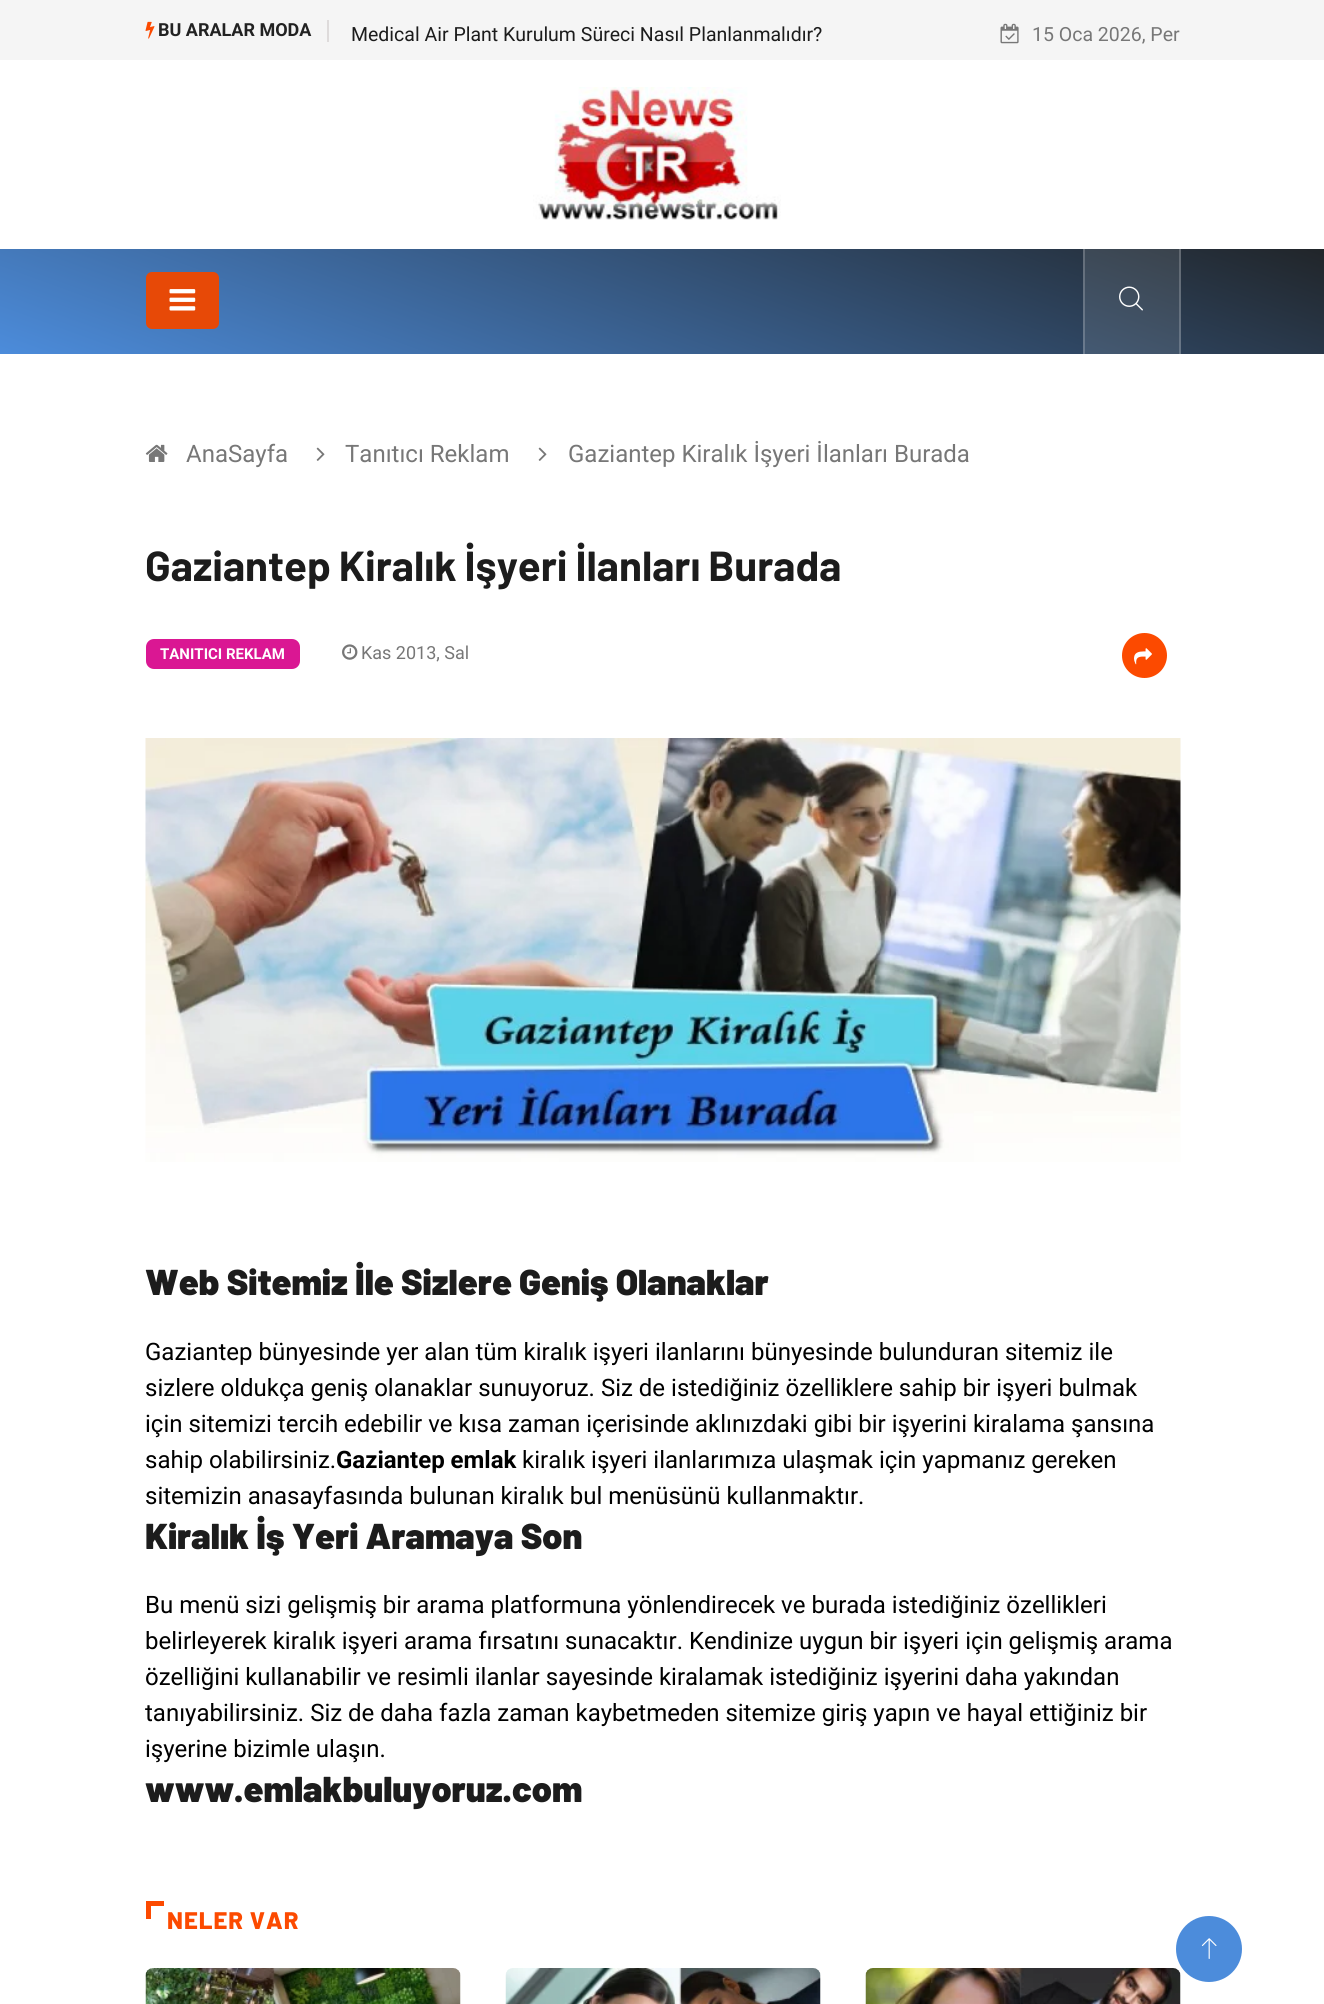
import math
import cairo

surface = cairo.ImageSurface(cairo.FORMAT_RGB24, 1324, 2004)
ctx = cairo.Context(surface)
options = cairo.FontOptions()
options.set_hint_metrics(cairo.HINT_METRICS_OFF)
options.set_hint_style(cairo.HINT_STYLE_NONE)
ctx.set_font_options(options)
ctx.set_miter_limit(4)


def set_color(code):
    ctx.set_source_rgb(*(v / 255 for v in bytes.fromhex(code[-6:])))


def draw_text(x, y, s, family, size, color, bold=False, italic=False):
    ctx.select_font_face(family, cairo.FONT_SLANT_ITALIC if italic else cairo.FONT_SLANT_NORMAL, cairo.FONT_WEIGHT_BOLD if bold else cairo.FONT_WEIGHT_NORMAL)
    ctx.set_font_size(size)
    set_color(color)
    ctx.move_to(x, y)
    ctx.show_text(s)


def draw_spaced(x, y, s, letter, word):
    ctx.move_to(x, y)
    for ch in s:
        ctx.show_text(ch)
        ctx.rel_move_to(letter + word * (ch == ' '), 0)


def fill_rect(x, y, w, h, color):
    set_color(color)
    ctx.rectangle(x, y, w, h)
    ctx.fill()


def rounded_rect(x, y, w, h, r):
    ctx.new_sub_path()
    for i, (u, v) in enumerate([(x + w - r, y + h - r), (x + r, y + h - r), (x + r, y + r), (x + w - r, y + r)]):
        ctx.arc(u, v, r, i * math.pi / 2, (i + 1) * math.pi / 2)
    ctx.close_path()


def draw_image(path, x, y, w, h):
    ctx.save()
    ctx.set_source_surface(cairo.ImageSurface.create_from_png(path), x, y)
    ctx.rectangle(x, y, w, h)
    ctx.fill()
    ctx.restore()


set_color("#ffffff")
ctx.paint()
fill_rect(0, 0, 1324, 60, "#f5f5f5")
fill_rect(327, 20, 2, 22, "#dedbdb")
draw_image("assets/img1.png", 145, 21, 10, 18)
draw_text(158, 36, "BU ARALAR MODA", "Roboto", 18, "#222222", bold=True)
draw_text(351, 41, "Medical Air Plant Kurulum Süreci Nasıl Planlanmalıdır?", "Roboto", 19.5, "#1c1c1c")
draw_image("assets/img2.png", 1000, 23, 19, 21)
draw_text(1032, 41, "15 Oca 2026, Per", "Roboto", 19.5, "#777777")
draw_image("assets/img3.png", 533, 87, 248, 133)
gradient = cairo.LinearGradient(568, 561, 757, 42)
gradient.add_color_stop_rgba(0, 0.298, 0.549, 0.859, 1)
gradient.add_color_stop_rgba(1, 0.129, 0.145, 0.161, 1)
ctx.set_source(gradient)
ctx.rectangle(0, 249, 1324, 105)
ctx.fill()
gradient = cairo.LinearGradient(568, 561, 757, 42)
gradient.add_color_stop_rgba(0, 0.369, 0.596, 0.875, 1)
gradient.add_color_stop_rgba(1, 0.216, 0.231, 0.243, 1)
ctx.set_source(gradient)
ctx.rectangle(1085, 249, 94, 105)
ctx.fill()
gradient = cairo.LinearGradient(568, 561, 757, 42)
gradient.add_color_stop_rgba(0, 0.494, 0.678, 0.898, 1)
gradient.add_color_stop_rgba(1, 0.373, 0.384, 0.396, 1)
ctx.set_source(gradient)
ctx.rectangle(1083, 249, 2, 105)
ctx.fill()
ctx.rectangle(1179, 249, 2, 105)
ctx.fill()
set_color("#e74907")
rounded_rect(146, 272, 73, 57, 6)
ctx.fill()
draw_image("assets/img4.png", 169, 289, 27, 22)
draw_image("assets/img5.png", 1119, 286, 24, 25)
draw_image("assets/img6.png", 145, 444, 23, 18)
draw_text(186, 462, "AnaSayfa", "Roboto", 24, "#777777")
draw_image("assets/img7.png", 316, 447, 9, 14)
draw_text(345, 462, "Tanıtıcı Reklam", "Roboto", 24, "#777777")
draw_image("assets/img7.png", 538, 447, 9, 14)
draw_text(568, 462, "Gaziantep Kiralık İşyeri İlanları Burada", "Roboto", 24, "#777777")
ctx.select_font_face("Barlow", cairo.FONT_SLANT_NORMAL, cairo.FONT_WEIGHT_BOLD)
ctx.set_font_size(42)
set_color("#1c1c1c")
draw_spaced(145, 581, "Gaziantep Kiralık İşyeri İlanları Burada", 0, -0.5)
set_color("#da1793")
rounded_rect(146, 639, 154, 30, 8)
ctx.fill()
draw_text(160, 659, "TANITICI REKLAM", "Roboto", 15, "#ffffff", bold=True)
draw_image("assets/img8.png", 342, 644, 16, 16)
draw_text(361, 659, "Kas 2013, Sal", "Roboto", 18, "#777777")
set_color("#fc4a00")
ctx.new_path()
ctx.arc(1144.5, 655.5, 22.5, 0, 2 * math.pi)
ctx.fill()
draw_image("assets/img9.png", 1134, 648, 18, 17)
draw_image("assets/img10.png", 145, 738, 1036, 424)
draw_text(145, 1295, "Web Sitemiz İle Sizlere Geniş Olanaklar", "Barlow Black", 36, "#1c1c1c")
draw_text(145, 1360, "Gaziantep bünyesinde yer alan tüm kiralık işyeri ilanlarını bünyesinde bulunduran sitemiz ile", "Roboto", 24, "#000000")
draw_text(145, 1396, "sizlere oldukça geniş olanaklar sunuyoruz. Siz de istediğiniz özelliklere sahip bir işyeri bulmak", "Roboto", 24, "#000000")
draw_text(145, 1432, "için sitemizi tercih edebilir ve kısa zaman içerisinde aklınızdaki gibi bir işyerini kiralama şansına", "Roboto", 24, "#000000")
draw_text(145, 1468, "sahip olabilirsiniz.", "Roboto", 24, "#000000")
draw_text(336, 1468, "Gaziantep emlak", "Roboto", 24, "#000000", bold=True)
draw_text(522, 1468, "kiralık işyeri ilanlarımıza ulaşmak için yapmanız gereken", "Roboto", 24, "#000000")
draw_text(145, 1504, "sitemizin anasayfasında bulunan kiralık bul menüsünü kullanmaktır.", "Roboto", 24, "#000000")
draw_text(145, 1549, "Kiralık İş Yeri Aramaya Son", "Barlow Black", 36, "#1c1c1c")
draw_text(145, 1613, "Bu menü sizi gelişmiş bir arama platformuna yönlendirecek ve burada istediğiniz özellikleri", "Roboto", 24, "#000000")
draw_text(145, 1649, "belirleyerek kiralık işyeri arama fırsatını sunacaktır. Kendinize uygun bir işyeri için gelişmiş arama", "Roboto", 24, "#000000")
draw_text(145, 1685, "özelliğini kullanabilir ve resimli ilanlar sayesinde kiralamak istediğiniz işyerini daha yakından", "Roboto", 24, "#000000")
draw_text(145, 1721, "tanıyabilirsiniz. Siz de daha fazla zaman kaybetmeden sitemize giriş yapın ve hayal ettiğiniz bir", "Roboto", 24, "#000000")
draw_text(145, 1757, "işyerine bizimle ulaşın.", "Roboto", 24, "#000000")
draw_text(145, 1802, "www.emlakbuluyoruz.com", "Barlow Black", 36, "#1c1c1c")
fill_rect(146, 1901, 5, 18, "#fc4a00")
fill_rect(146, 1901, 18, 5, "#fc4a00")
ctx.select_font_face("Barlow ExtraBold")
ctx.set_font_size(24)
draw_spaced(167, 1929, "NELER VAR", 1, 0)
draw_image("assets/img11.png", 145, 1968, 316, 36)
draw_image("assets/img12.png", 505, 1968, 316, 36)
draw_image("assets/img13.png", 865, 1968, 316, 36)
set_color("#4c8cdb")
ctx.arc(1209, 1949, 33, 0, 2 * math.pi)
ctx.fill()
draw_image("assets/img14.png", 1201, 1938, 16, 21)
surface.write_to_png("output.png")
